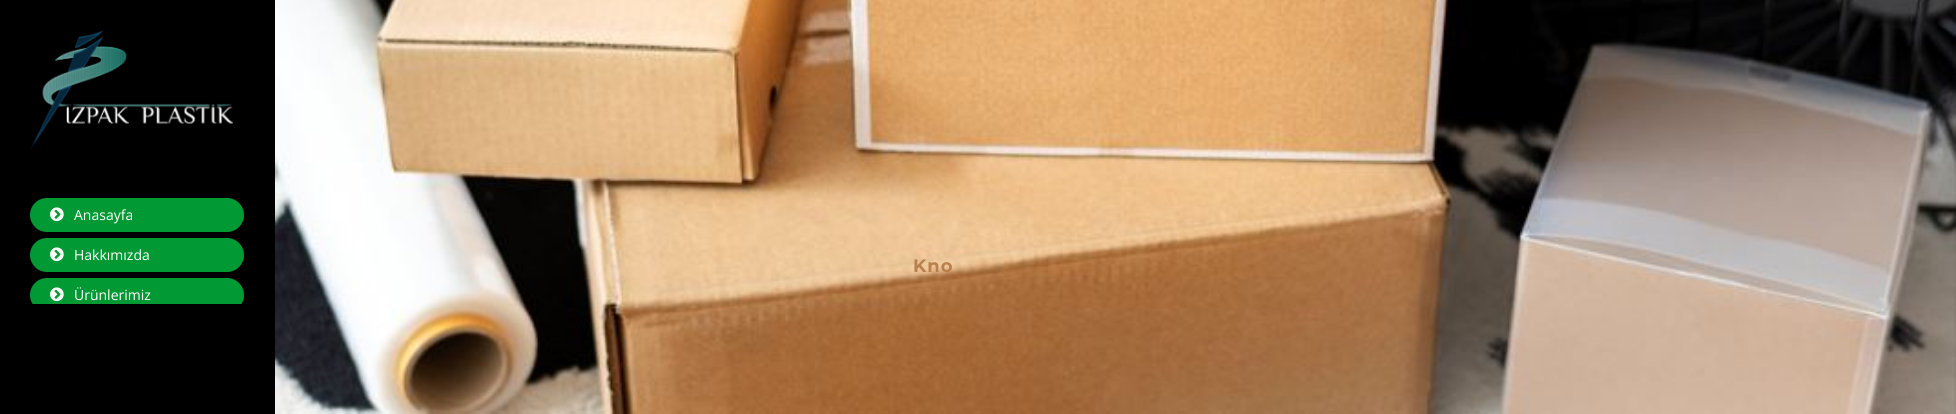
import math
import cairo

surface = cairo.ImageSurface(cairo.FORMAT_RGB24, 1956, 414)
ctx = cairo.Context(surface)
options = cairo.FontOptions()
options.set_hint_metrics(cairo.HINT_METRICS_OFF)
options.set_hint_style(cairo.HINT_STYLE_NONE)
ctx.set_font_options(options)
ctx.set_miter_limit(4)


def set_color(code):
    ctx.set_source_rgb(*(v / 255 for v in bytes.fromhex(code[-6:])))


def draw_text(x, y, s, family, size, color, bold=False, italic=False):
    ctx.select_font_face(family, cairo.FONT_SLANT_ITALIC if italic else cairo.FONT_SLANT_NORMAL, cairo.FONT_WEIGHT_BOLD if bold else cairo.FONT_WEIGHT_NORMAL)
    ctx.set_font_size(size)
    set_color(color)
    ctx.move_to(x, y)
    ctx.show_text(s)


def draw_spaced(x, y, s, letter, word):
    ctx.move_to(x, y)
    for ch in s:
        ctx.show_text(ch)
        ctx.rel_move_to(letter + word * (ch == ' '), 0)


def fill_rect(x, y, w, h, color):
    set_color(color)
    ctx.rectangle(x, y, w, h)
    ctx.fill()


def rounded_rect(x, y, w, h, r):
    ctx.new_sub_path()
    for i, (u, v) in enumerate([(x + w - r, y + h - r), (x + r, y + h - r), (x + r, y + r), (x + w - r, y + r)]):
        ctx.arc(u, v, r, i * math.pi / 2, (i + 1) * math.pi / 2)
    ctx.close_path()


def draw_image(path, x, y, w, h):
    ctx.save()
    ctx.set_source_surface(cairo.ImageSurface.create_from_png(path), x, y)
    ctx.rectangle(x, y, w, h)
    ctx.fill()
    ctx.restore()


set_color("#ffffff")
ctx.paint()
fill_rect(0, 0, 275, 414, "#000000")
draw_image("assets/img1.png", 30, 30, 203, 120)
set_color("#009933")
rounded_rect(30, 198, 214, 34, 17)
ctx.fill()
draw_image("assets/img2.png", 50, 207, 14, 15)
draw_text(74, 220, "Anasayfa", "Open Sans", 14, "#ffffff")
set_color("#009933")
rounded_rect(30, 238, 214, 34, 17)
ctx.fill()
draw_image("assets/img2.png", 50, 247, 14, 15)
draw_text(74, 260, "Hakkımızda", "Open Sans", 14, "#ffffff")
ctx.save()
ctx.rectangle(0, 160, 274, 144)
ctx.clip()
set_color("#009933")
rounded_rect(30, 278, 214, 34, 17)
ctx.fill()
ctx.restore()
draw_image("assets/img2.png", 50, 287, 14, 15)
draw_text(74, 300, "Ürünlerimiz", "Open Sans", 14, "#ffffff")
draw_image("assets/img3.png", 275, 0, 1681, 414)
ctx.select_font_face("Montserrat Thin")
ctx.set_font_size(18)
set_color("#b8804d")
draw_spaced(913, 272, "Kno", 1, 0)
surface.write_to_png("output.png")
